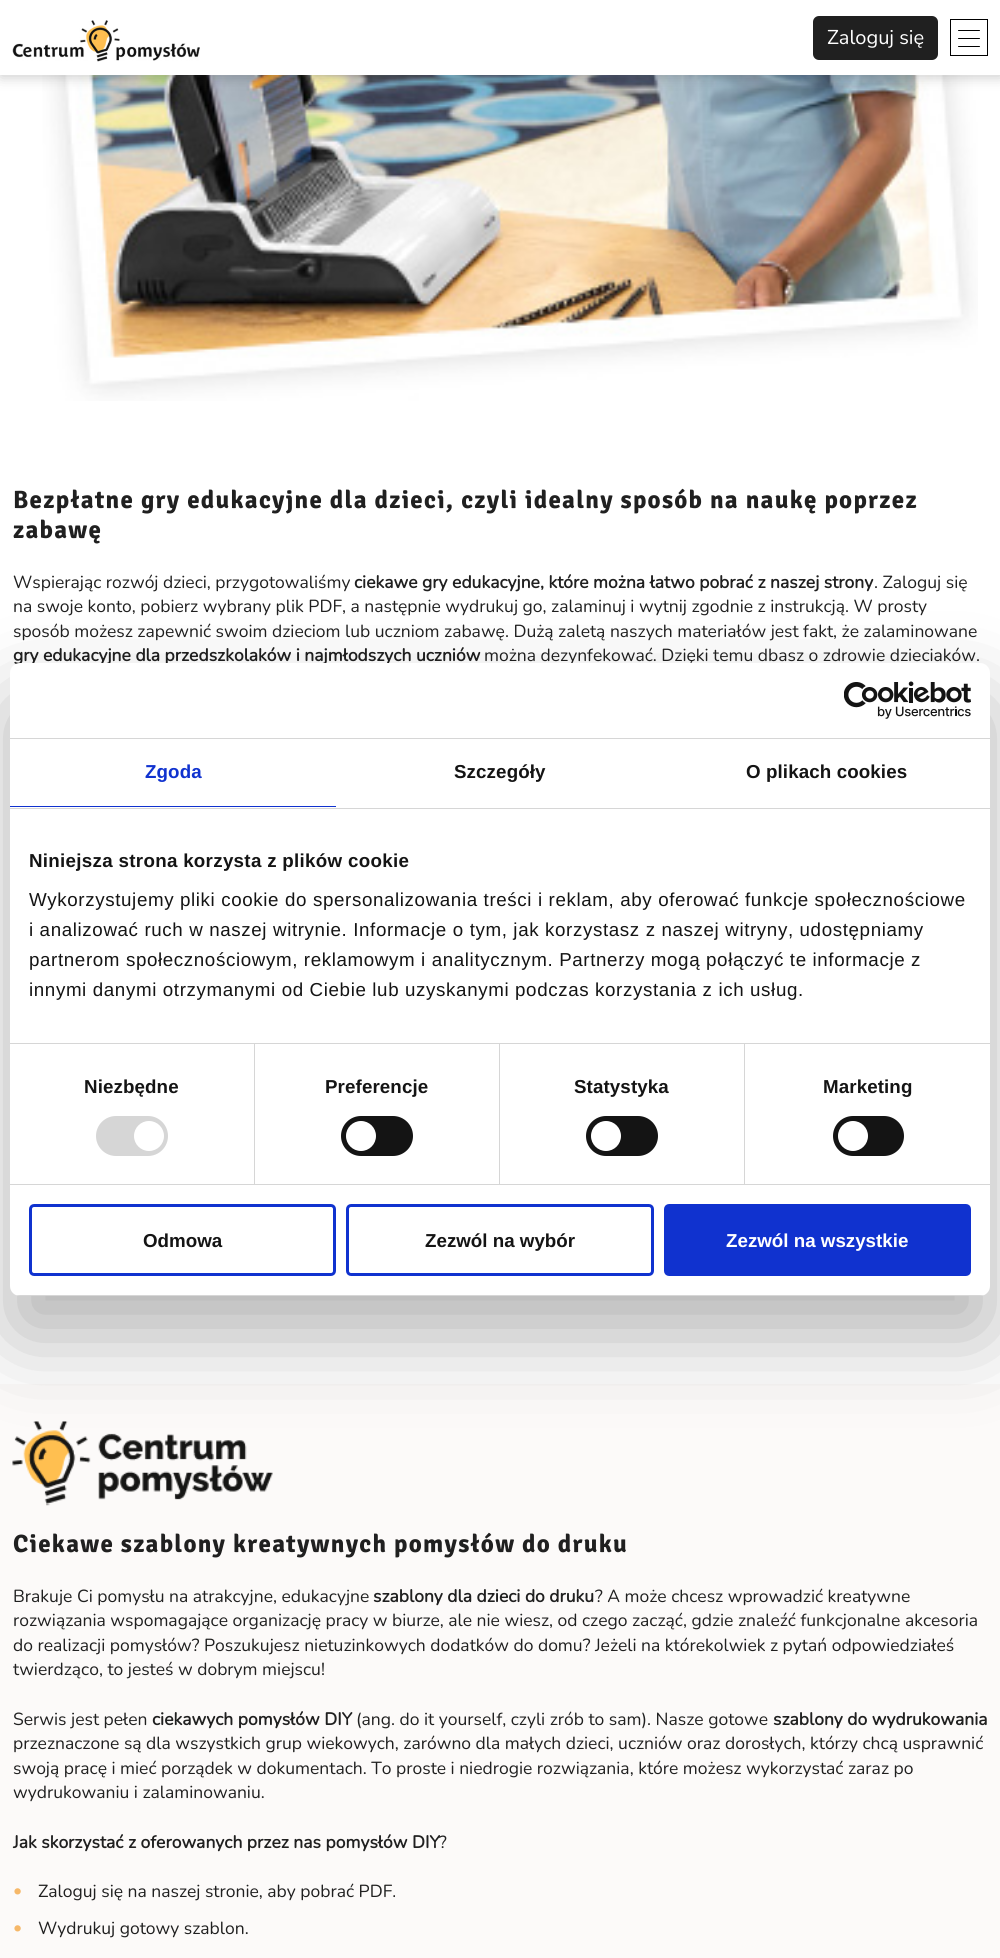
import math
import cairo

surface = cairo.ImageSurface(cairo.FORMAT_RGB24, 1000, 1958)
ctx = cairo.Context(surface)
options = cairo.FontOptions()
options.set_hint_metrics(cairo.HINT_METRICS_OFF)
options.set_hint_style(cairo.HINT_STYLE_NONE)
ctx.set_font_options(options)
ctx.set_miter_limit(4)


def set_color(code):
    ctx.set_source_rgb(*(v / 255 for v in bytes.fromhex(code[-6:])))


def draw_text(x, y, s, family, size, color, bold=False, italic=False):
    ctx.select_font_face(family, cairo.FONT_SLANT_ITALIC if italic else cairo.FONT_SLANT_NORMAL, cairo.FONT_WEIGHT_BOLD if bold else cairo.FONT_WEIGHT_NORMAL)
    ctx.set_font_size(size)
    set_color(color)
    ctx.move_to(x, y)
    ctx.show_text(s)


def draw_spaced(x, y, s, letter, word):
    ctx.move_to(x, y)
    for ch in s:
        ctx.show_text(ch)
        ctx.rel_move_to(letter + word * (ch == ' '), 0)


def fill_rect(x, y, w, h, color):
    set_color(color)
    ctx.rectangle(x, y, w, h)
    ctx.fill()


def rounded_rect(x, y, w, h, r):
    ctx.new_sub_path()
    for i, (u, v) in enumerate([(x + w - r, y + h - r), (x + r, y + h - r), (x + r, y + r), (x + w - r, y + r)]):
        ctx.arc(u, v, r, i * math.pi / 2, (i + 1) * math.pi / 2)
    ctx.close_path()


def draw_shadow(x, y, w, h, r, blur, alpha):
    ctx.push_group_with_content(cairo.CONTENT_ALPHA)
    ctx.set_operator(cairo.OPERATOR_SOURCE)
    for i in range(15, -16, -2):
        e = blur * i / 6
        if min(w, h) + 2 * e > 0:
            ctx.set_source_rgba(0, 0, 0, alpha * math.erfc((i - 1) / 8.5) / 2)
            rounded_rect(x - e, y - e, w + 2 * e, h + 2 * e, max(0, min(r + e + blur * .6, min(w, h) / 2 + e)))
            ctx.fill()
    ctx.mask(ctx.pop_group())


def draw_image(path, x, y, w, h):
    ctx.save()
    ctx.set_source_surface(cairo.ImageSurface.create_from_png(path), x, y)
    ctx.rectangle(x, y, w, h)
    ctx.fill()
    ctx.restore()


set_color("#ffffff")
ctx.paint()
draw_image("assets/img2.png", 42, 75, 936, 326)
set_color("#3b3b3b")
draw_shadow(1, 1, 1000, 75, 0, 7, 0.3)
fill_rect(0, 0, 1000, 75, "#ffffff")
draw_image("assets/img1.png", 12, 20, 188, 42)
set_color("#202020")
rounded_rect(813, 16, 125, 44, 6)
ctx.fill()
draw_text(827, 44, "Zaloguj się", "Nunito ExtraLight", 20, "#ffffff")
ctx.rectangle(950.5, 19.5, 37, 36)
set_color("#000000")
ctx.set_line_width(1)
ctx.stroke()
rounded_rect(958, 30, 22, 1, 0.5)
ctx.fill()
rounded_rect(958, 38, 22, 1, 0.5)
ctx.fill()
rounded_rect(958, 46, 22, 1, 0.5)
ctx.fill()
ctx.select_font_face("Signika Light")
ctx.set_font_size(25)
set_color("#202020")
draw_spaced(13, 508, "Bezpłatne gry edukacyjne dla dzieci, czyli idealny sposób na naukę poprzez", 1.25, 0)
draw_spaced(13, 538, "zabawę", 1.25, 0)
draw_text(13, 588, "Wspierając rozwój dzieci, przygotowaliśmy", "Nunito ExtraLight", 17.5, "#202020")
draw_text(354, 588, "ciekawe gry edukacyjne, które można łatwo pobrać z naszej strony", "Nunito", 17.5, "#202020", bold=True)
draw_text(874, 588, ". Zaloguj się", "Nunito ExtraLight", 17.5, "#202020")
draw_text(13, 612, "na swoje konto, pobierz wybrany plik PDF, a następnie wydrukuj go, zalaminuj i wytnij zgodnie z instrukcją. W prosty", "Nunito ExtraLight", 17.5, "#202020")
draw_text(13, 637, "sposób możesz zapewnić swoim dzieciom lub uczniom zabawę. Dużą zaletą naszych materiałów jest fakt, że zalaminowane", "Nunito ExtraLight", 17.5, "#202020")
draw_text(13, 661, "gry edukacyjne dla przedszkolaków i najmłodszych uczniów", "Nunito", 17.5, "#202020", bold=True)
draw_text(484, 661, "można dezynfekować. Dzięki temu dbasz o zdrowie dzieciaków.", "Nunito ExtraLight", 17.5, "#202020")
fill_rect(0, 1384, 1000, 574, "#fcfaf9")
draw_image("assets/img4.png", 12, 1421, 261, 85)
set_color("#000000")
draw_shadow(10, 703, 980, 633, 10, 42.5, 0.3)
set_color("#ffffff")
rounded_rect(10, 663, 980, 633, 10)
ctx.fill()
fill_rect(10, 738, 980, 1, "#d6d6d6")
draw_image("assets/img3.png", 844, 681, 127, 38)
fill_rect(10, 808, 980, 1, "#d6d6d6")
fill_rect(10, 806, 326, 1, "#1032cf")
ctx.select_font_face("Liberation Sans", cairo.FONT_SLANT_NORMAL, cairo.FONT_WEIGHT_BOLD)
ctx.set_font_size(18.75)
draw_spaced(145, 778, "Zgoda", 0.1, 0)
set_color("#141414")
draw_spaced(454, 778, "Szczegóły", 0.1, 0)
draw_spaced(746, 778, "O plikach cookies", 0.1, 0)
fill_rect(10, 1043, 980, 1, "#d6d6d6")
set_color("#141414")
draw_spaced(29, 867, "Niniejsza strona korzysta z plików cookie", 0.3, 0)
ctx.select_font_face("Liberation Sans")
draw_spaced(29, 906, "Wykorzystujemy pliki cookie do spersonalizowania treści i reklam, aby oferować funkcje społecznościowe", 0.62, 0)
draw_spaced(29, 936, "i analizować ruch w naszej witrynie. Informacje o tym, jak korzystasz z naszej witryny, udostępniamy", 0.62, 0)
draw_spaced(29, 966, "partnerom społecznościowym, reklamowym i analitycznym. Partnerzy mogą połączyć te informacje z", 0.62, 0)
draw_spaced(29, 996, "innymi danymi otrzymanymi od Ciebie lub uzyskanymi podczas korzystania z ich usług.", 0.62, 0)
fill_rect(10, 1184, 980, 1, "#d6d6d6")
fill_rect(254, 1044, 1, 140, "#d6d6d6")
ctx.select_font_face("Liberation Sans", cairo.FONT_SLANT_NORMAL, cairo.FONT_WEIGHT_BOLD)
set_color("#141414")
draw_spaced(84, 1093, "Niezbędne", 0.1, 0)
set_color("#d6d6d6")
rounded_rect(96, 1116, 72, 40, 20)
ctx.fill()
set_color("#ffffff")
ctx.arc(149, 1136, 15, 0, 2 * math.pi)
ctx.fill()
fill_rect(499, 1044, 1, 140, "#d6d6d6")
set_color("#141414")
draw_spaced(325, 1093, "Preferencje", 0.1, 0)
rounded_rect(341, 1116, 72, 40, 20)
ctx.fill()
set_color("#ffffff")
ctx.arc(361, 1136, 15, 0, 2 * math.pi)
ctx.fill()
fill_rect(744, 1044, 1, 140, "#d6d6d6")
set_color("#141414")
draw_spaced(574, 1093, "Statystyka", 0.1, 0)
rounded_rect(586, 1116, 72, 40, 20)
ctx.fill()
set_color("#ffffff")
ctx.arc(606, 1136, 15, 0, 2 * math.pi)
ctx.fill()
set_color("#141414")
draw_spaced(823, 1093, "Marketing", 0.1, 0)
rounded_rect(833, 1116, 71, 40, 20)
ctx.fill()
set_color("#ffffff")
ctx.arc(853, 1136, 15, 0, 2 * math.pi)
ctx.fill()
ctx.save()
rounded_rect(10, 663, 980, 633, 10)
ctx.clip()
fill_rect(10, 1295, 980, 1, "#d6d6d6")
ctx.restore()
rounded_rect(30.5, 1205.5, 304, 69, 3.5)
set_color("#1032cf")
ctx.set_line_width(3)
ctx.stroke()
draw_text(143, 1247, "Odmowa", "Liberation Sans", 18.75, "#141414", bold=True)
rounded_rect(347.5, 1205.5, 305, 69, 3.5)
set_color("#1032cf")
ctx.stroke()
draw_text(425, 1247, "Zezwól na wybór", "Liberation Sans", 18.75, "#141414", bold=True)
set_color("#1032cf")
rounded_rect(665.5, 1205.5, 304, 69, 3.5)
ctx.fill_preserve()
ctx.stroke()
draw_text(726, 1247, "Zezwól na wszystkie", "Liberation Sans", 18.75, "#ffffff", bold=True)
ctx.select_font_face("Signika Light")
ctx.set_font_size(25)
set_color("#202020")
draw_spaced(13, 1552, "Ciekawe szablony kreatywnych pomysłów do druku", 1.25, 0)
draw_text(13, 1602, "Brakuje Ci pomysłu na atrakcyjne, edukacyjne", "Nunito ExtraLight", 17.5, "#202020")
draw_text(373, 1602, "szablony dla dzieci do druku", "Nunito", 17.5, "#202020", bold=True)
draw_text(595, 1602, "? A może chcesz wprowadzić kreatywne", "Nunito ExtraLight", 17.5, "#202020")
draw_text(13, 1626, "rozwiązania wspomagające organizację pracy w biurze, ale nie wiesz, od czego zacząć, gdzie znaleźć funkcjonalne akcesoria", "Nunito ExtraLight", 17.5, "#202020")
draw_text(13, 1651, "do realizacji pomysłów? Poszukujesz nietuzinkowych dodatków do domu? Jeżeli na którekolwiek z pytań odpowiedziałeś", "Nunito ExtraLight", 17.5, "#202020")
draw_text(13, 1675, "twierdząco, to jesteś w dobrym miejscu!", "Nunito ExtraLight", 17.5, "#202020")
draw_text(13, 1725, "Serwis jest pełen", "Nunito ExtraLight", 17.5, "#202020")
draw_text(152, 1725, "ciekawych pomysłów DIY", "Nunito", 17.5, "#202020", bold=True)
draw_text(356, 1725, "(ang. do it yourself, czyli zrób to sam). Nasze gotowe", "Nunito ExtraLight", 17.5, "#202020")
draw_text(773, 1725, "szablony do wydrukowania", "Nunito", 17.5, "#202020", bold=True)
draw_text(13, 1749, "przeznaczone są dla wszystkich grup wiekowych, zarówno dla małych dzieci, uczniów oraz dorosłych, którzy chcą usprawnić", "Nunito ExtraLight", 17.5, "#202020")
draw_text(13, 1774, "swoją pracę i mieć porządek w dokumentach. To proste i niedrogie rozwiązania, które możesz wykorzystać zaraz po", "Nunito ExtraLight", 17.5, "#202020")
draw_text(13, 1798, "wydrukowaniu i zalaminowaniu.", "Nunito ExtraLight", 17.5, "#202020")
draw_text(13, 1848, "Jak skorzystać z oferowanych przez nas pomysłów DIY", "Nunito", 17.5, "#202020", bold=True)
draw_text(439, 1848, "?", "Nunito ExtraLight", 17.5, "#202020")
draw_text(13, 1896, "•", "Nunito ExtraLight", 17.5, "#f6b869")
draw_text(38, 1897, "Zaloguj się na naszej stronie, aby pobrać PDF.", "Nunito ExtraLight", 17.5, "#202020")
draw_text(13, 1933, "•", "Nunito ExtraLight", 17.5, "#f6b869")
draw_text(38, 1934, "Wydrukuj gotowy szablon.", "Nunito ExtraLight", 17.5, "#202020")
surface.write_to_png("output.png")
